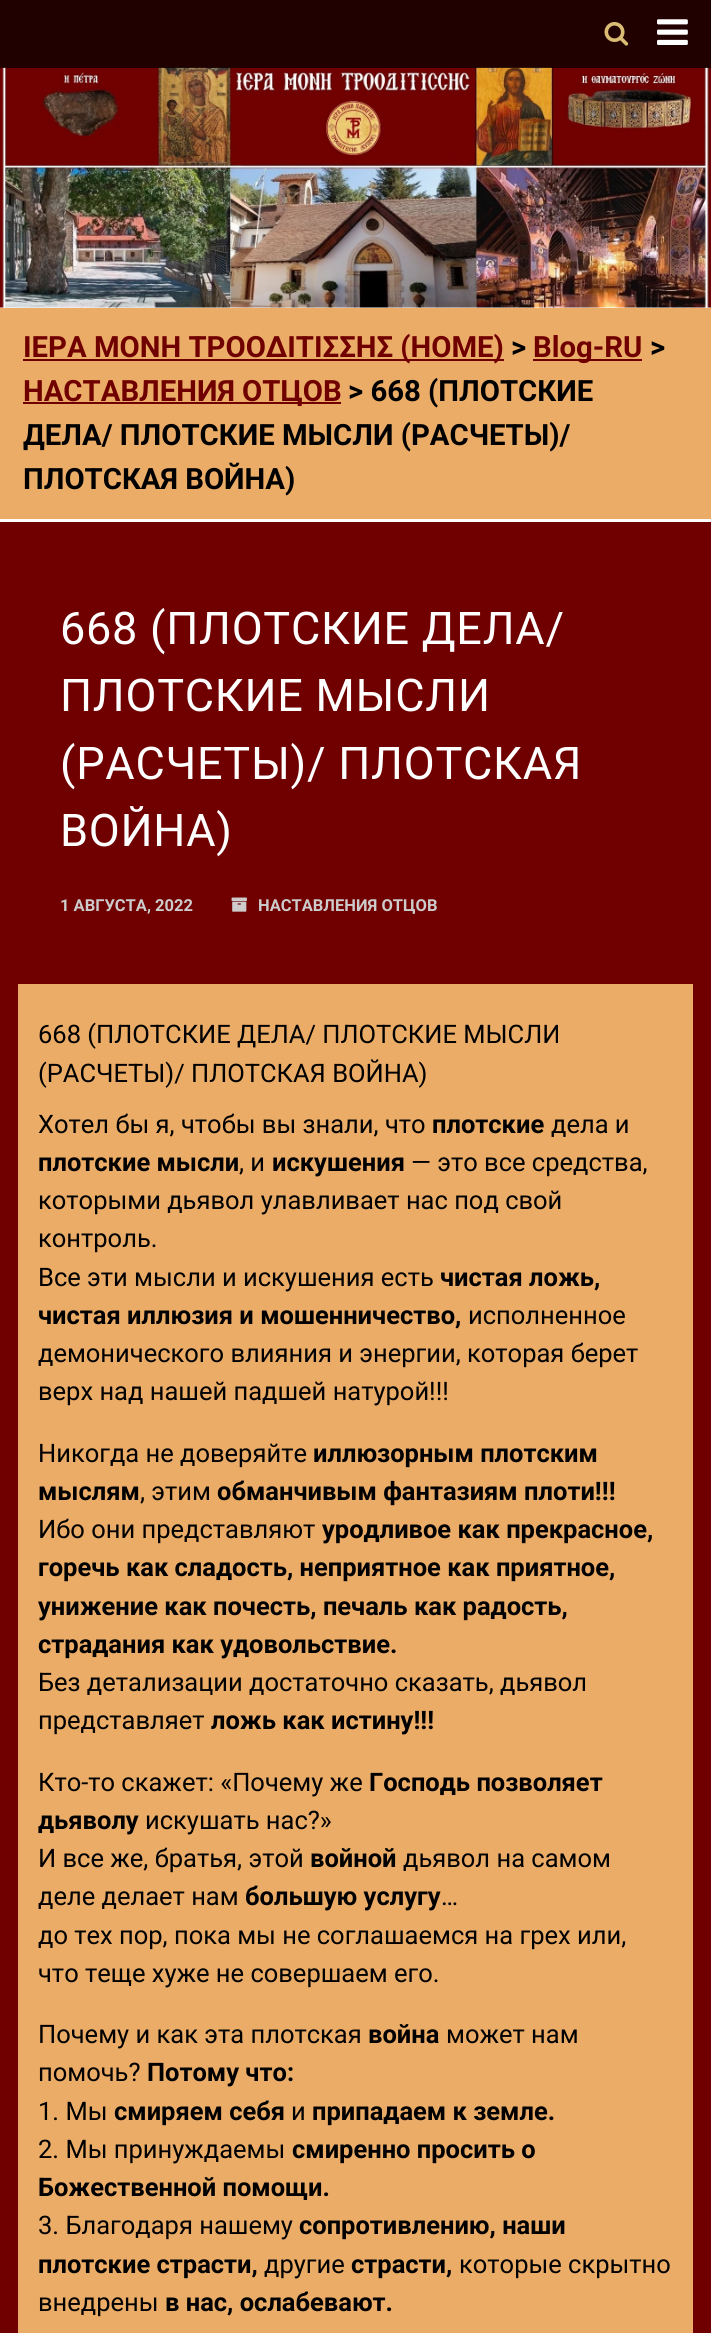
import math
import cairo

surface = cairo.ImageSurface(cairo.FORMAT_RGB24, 711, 2333)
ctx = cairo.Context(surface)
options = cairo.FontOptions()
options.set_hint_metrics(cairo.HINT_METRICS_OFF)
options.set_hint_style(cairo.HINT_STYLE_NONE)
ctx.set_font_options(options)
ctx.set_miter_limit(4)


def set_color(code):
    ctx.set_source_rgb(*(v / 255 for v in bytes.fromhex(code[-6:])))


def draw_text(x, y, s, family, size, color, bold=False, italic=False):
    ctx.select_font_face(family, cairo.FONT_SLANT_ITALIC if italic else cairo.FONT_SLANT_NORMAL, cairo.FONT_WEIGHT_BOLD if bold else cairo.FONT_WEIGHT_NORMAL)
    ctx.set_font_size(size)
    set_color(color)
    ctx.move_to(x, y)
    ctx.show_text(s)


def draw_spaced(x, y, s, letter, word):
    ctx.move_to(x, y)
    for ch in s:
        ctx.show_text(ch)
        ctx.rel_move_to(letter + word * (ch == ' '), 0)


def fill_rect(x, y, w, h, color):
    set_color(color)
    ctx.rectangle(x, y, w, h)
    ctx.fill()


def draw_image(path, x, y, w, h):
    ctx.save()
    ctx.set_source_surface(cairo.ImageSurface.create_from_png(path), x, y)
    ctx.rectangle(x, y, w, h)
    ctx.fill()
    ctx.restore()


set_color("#700000")
ctx.paint()
fill_rect(0, 307, 711, 1, "#f8f8f8")
draw_image("assets/img3.png", 0, 67, 711, 241)
ctx.set_source_rgba(0, 0, 0, 0.7)
ctx.rectangle(0, 0, 711, 68)
ctx.fill()
draw_image("assets/img1.png", 604, 22, 25, 24)
draw_image("assets/img2.png", 657, 19, 31, 26)
fill_rect(0, 519, 711, 3, "#ffffff")
fill_rect(0, 308, 711, 211, "#ebac67")
fill_rect(23, 359, 481, 2, "#700000")
draw_text(23, 357, "ΙΕΡΑ ΜΟΝΗ ΤΡΟΟΔΙΤΙΣΣΗΣ (HOME)", "Roboto", 29.3, "#700000", bold=True)
draw_text(511, 357, ">", "Roboto", 29.3, "#000000", bold=True)
fill_rect(533, 359, 109, 2, "#700000")
draw_text(533, 357, "Blog-RU", "Roboto", 29.3, "#700000", bold=True)
draw_text(650, 357, ">", "Roboto", 29.3, "#000000", bold=True)
fill_rect(23, 402, 318, 2, "#700000")
draw_text(23, 401, "НАСТАВЛЕНИЯ ОТЦОВ", "Roboto", 29.3, "#700000", bold=True)
draw_text(348, 401, "> 668 (ПЛОТСКИЕ", "Roboto", 29.3, "#000000", bold=True)
draw_text(23, 445, "ДЕЛА/ ПЛОТСКИЕ МЫСЛИ (РАСЧЕТЫ)/", "Roboto", 29.3, "#000000", bold=True)
draw_text(23, 489, "ПЛОТСКАЯ ВОЙНА)", "Roboto", 29.3, "#000000", bold=True)
ctx.select_font_face("Roboto")
ctx.set_font_size(45)
set_color("#ffffff")
draw_spaced(60, 644, "668 (ПЛОТСКИЕ ДЕЛА/", 0.75, 0)
draw_spaced(60, 711, "ПЛОТСКИЕ МЫСЛИ", 0.75, 0)
draw_spaced(60, 779, "(РАСЧЕТЫ)/ ПЛОТСКАЯ", 0.75, 0)
draw_spaced(60, 846, "ВОЙНА)", 0.75, 0)
draw_text(60, 911, "1 АВГУСТА, 2022", "Roboto", 16.5, "#cdcbcb", bold=True)
draw_image("assets/img4.png", 231, 897, 16, 15)
draw_text(258, 911, "НАСТАВЛЕНИЯ ОТЦОВ", "Roboto", 16.5, "#cdcbcb", bold=True)
fill_rect(18, 984, 675, 1349, "#ebac67")
draw_text(38, 1043, "668 (ПЛОТСКИЕ ДЕЛА/ ПЛОТСКИЕ МЫСЛИ", "Roboto", 25.5, "#000000")
draw_text(38, 1082, "(РАСЧЕТЫ)/ ПЛОТСКАЯ ВОЙНА)", "Roboto", 25.5, "#000000")
draw_text(38, 1133, "Хотел бы я, чтобы вы знали, что", "Roboto", 25.5, "#000000")
draw_text(432, 1133, "плотские", "Roboto", 25.5, "#000000", bold=True)
draw_text(551, 1133, "дела и", "Roboto", 25.5, "#000000")
draw_text(38, 1171, "плотские мысли", "Roboto", 25.5, "#000000", bold=True)
draw_text(239, 1171, ", и", "Roboto", 25.5, "#000000")
draw_text(272, 1171, "искушения", "Roboto", 25.5, "#000000", bold=True)
draw_text(411, 1171, "— это все средства,", "Roboto", 25.5, "#000000")
draw_text(38, 1209, "которыми дьявол улавливает нас под свой", "Roboto", 25.5, "#000000")
draw_text(38, 1247, "контроль.", "Roboto", 25.5, "#000000")
draw_text(38, 1286, "Все эти мысли и искушения есть", "Roboto", 25.5, "#000000")
draw_text(440, 1286, "чистая ложь,", "Roboto", 25.5, "#000000", bold=True)
draw_text(38, 1324, "чистая иллюзия и мошенничество,", "Roboto", 25.5, "#000000", bold=True)
draw_text(468, 1324, "исполненное", "Roboto", 25.5, "#000000")
draw_text(38, 1362, "демонического влияния и энергии, которая берет", "Roboto", 25.5, "#000000")
draw_text(38, 1400, "верх над нашей падшей натурой!!!", "Roboto", 25.5, "#000000")
draw_text(38, 1462, "Никогда не доверяйте", "Roboto", 25.5, "#000000")
draw_text(313, 1462, "иллюзорным плотским", "Roboto", 25.5, "#000000", bold=True)
draw_text(38, 1500, "мыслям", "Roboto", 25.5, "#000000", bold=True)
draw_text(140, 1500, ", этим", "Roboto", 25.5, "#000000")
draw_text(217, 1500, "обманчивым фантазиям плоти!!!", "Roboto", 25.5, "#000000", bold=True)
draw_text(38, 1538, "Ибо они представляют", "Roboto", 25.5, "#000000")
draw_text(322, 1538, "уродливое как прекрасное,", "Roboto", 25.5, "#000000", bold=True)
draw_text(38, 1576, "горечь как сладость, неприятное как приятное,", "Roboto", 25.5, "#000000", bold=True)
draw_text(38, 1615, "унижение как почесть, печаль как радость,", "Roboto", 25.5, "#000000", bold=True)
draw_text(38, 1653, "страдания как удовольствие.", "Roboto", 25.5, "#000000", bold=True)
draw_text(38, 1691, "Без детализации достаточно сказать, дьявол", "Roboto", 25.5, "#000000")
draw_text(38, 1729, "представляет", "Roboto", 25.5, "#000000")
draw_text(211, 1729, "ложь как истину!!!", "Roboto", 25.5, "#000000", bold=True)
draw_text(38, 1791, "Кто-то скажет: «Почему же", "Roboto", 25.5, "#000000")
draw_text(369, 1791, "Господь позволяет", "Roboto", 25.5, "#000000", bold=True)
draw_text(38, 1829, "дьяволу", "Roboto", 25.5, "#000000", bold=True)
draw_text(145, 1829, "искушать нас?»", "Roboto", 25.5, "#000000")
draw_text(38, 1867, "И все же, братья, этой", "Roboto", 25.5, "#000000")
draw_text(310, 1867, "войной", "Roboto", 25.5, "#000000", bold=True)
draw_text(403, 1867, "дьявол на самом", "Roboto", 25.5, "#000000")
draw_text(38, 1905, "деле делает нам", "Roboto", 25.5, "#000000")
draw_text(245, 1905, "большую услугу", "Roboto", 25.5, "#000000", bold=True)
draw_text(441, 1905, "…", "Roboto", 25.5, "#000000")
draw_text(38, 1944, "до тех пор, пока мы не соглашаемся на грех или,", "Roboto", 25.5, "#000000")
draw_text(38, 1982, "что теще хуже не совершаем его.", "Roboto", 25.5, "#000000")
draw_text(38, 2043, "Почему и как эта плотская", "Roboto", 25.5, "#000000")
draw_text(368, 2043, "война", "Roboto", 25.5, "#000000", bold=True)
draw_text(446, 2043, "может нам", "Roboto", 25.5, "#000000")
draw_text(38, 2081, "помочь?", "Roboto", 25.5, "#000000")
draw_text(147, 2081, "Потому что:", "Roboto", 25.5, "#000000", bold=True)
draw_text(38, 2120, "1. Мы", "Roboto", 25.5, "#000000")
draw_text(114, 2120, "смиряем себя", "Roboto", 25.5, "#000000", bold=True)
draw_text(291, 2120, "и", "Roboto", 25.5, "#000000")
draw_text(312, 2120, "припадаем к земле.", "Roboto", 25.5, "#000000", bold=True)
draw_text(38, 2158, "2. Мы принуждаемы", "Roboto", 25.5, "#000000")
draw_text(292, 2158, "смиренно просить о", "Roboto", 25.5, "#000000", bold=True)
draw_text(38, 2196, "Божественной помощи.", "Roboto", 25.5, "#000000", bold=True)
draw_text(38, 2234, "3. Благодаря нашему", "Roboto", 25.5, "#000000")
draw_text(299, 2234, "сопротивлению, наши", "Roboto", 25.5, "#000000", bold=True)
draw_text(38, 2273, "плотские страсти,", "Roboto", 25.5, "#000000", bold=True)
draw_text(264, 2273, "другие", "Roboto", 25.5, "#000000")
draw_text(351, 2273, "страсти,", "Roboto", 25.5, "#000000", bold=True)
draw_text(459, 2273, "которые скрытно", "Roboto", 25.5, "#000000")
draw_text(38, 2311, "внедрены", "Roboto", 25.5, "#000000")
draw_text(165, 2311, "в нас, ослабевают.", "Roboto", 25.5, "#000000", bold=True)
surface.write_to_png("output.png")
